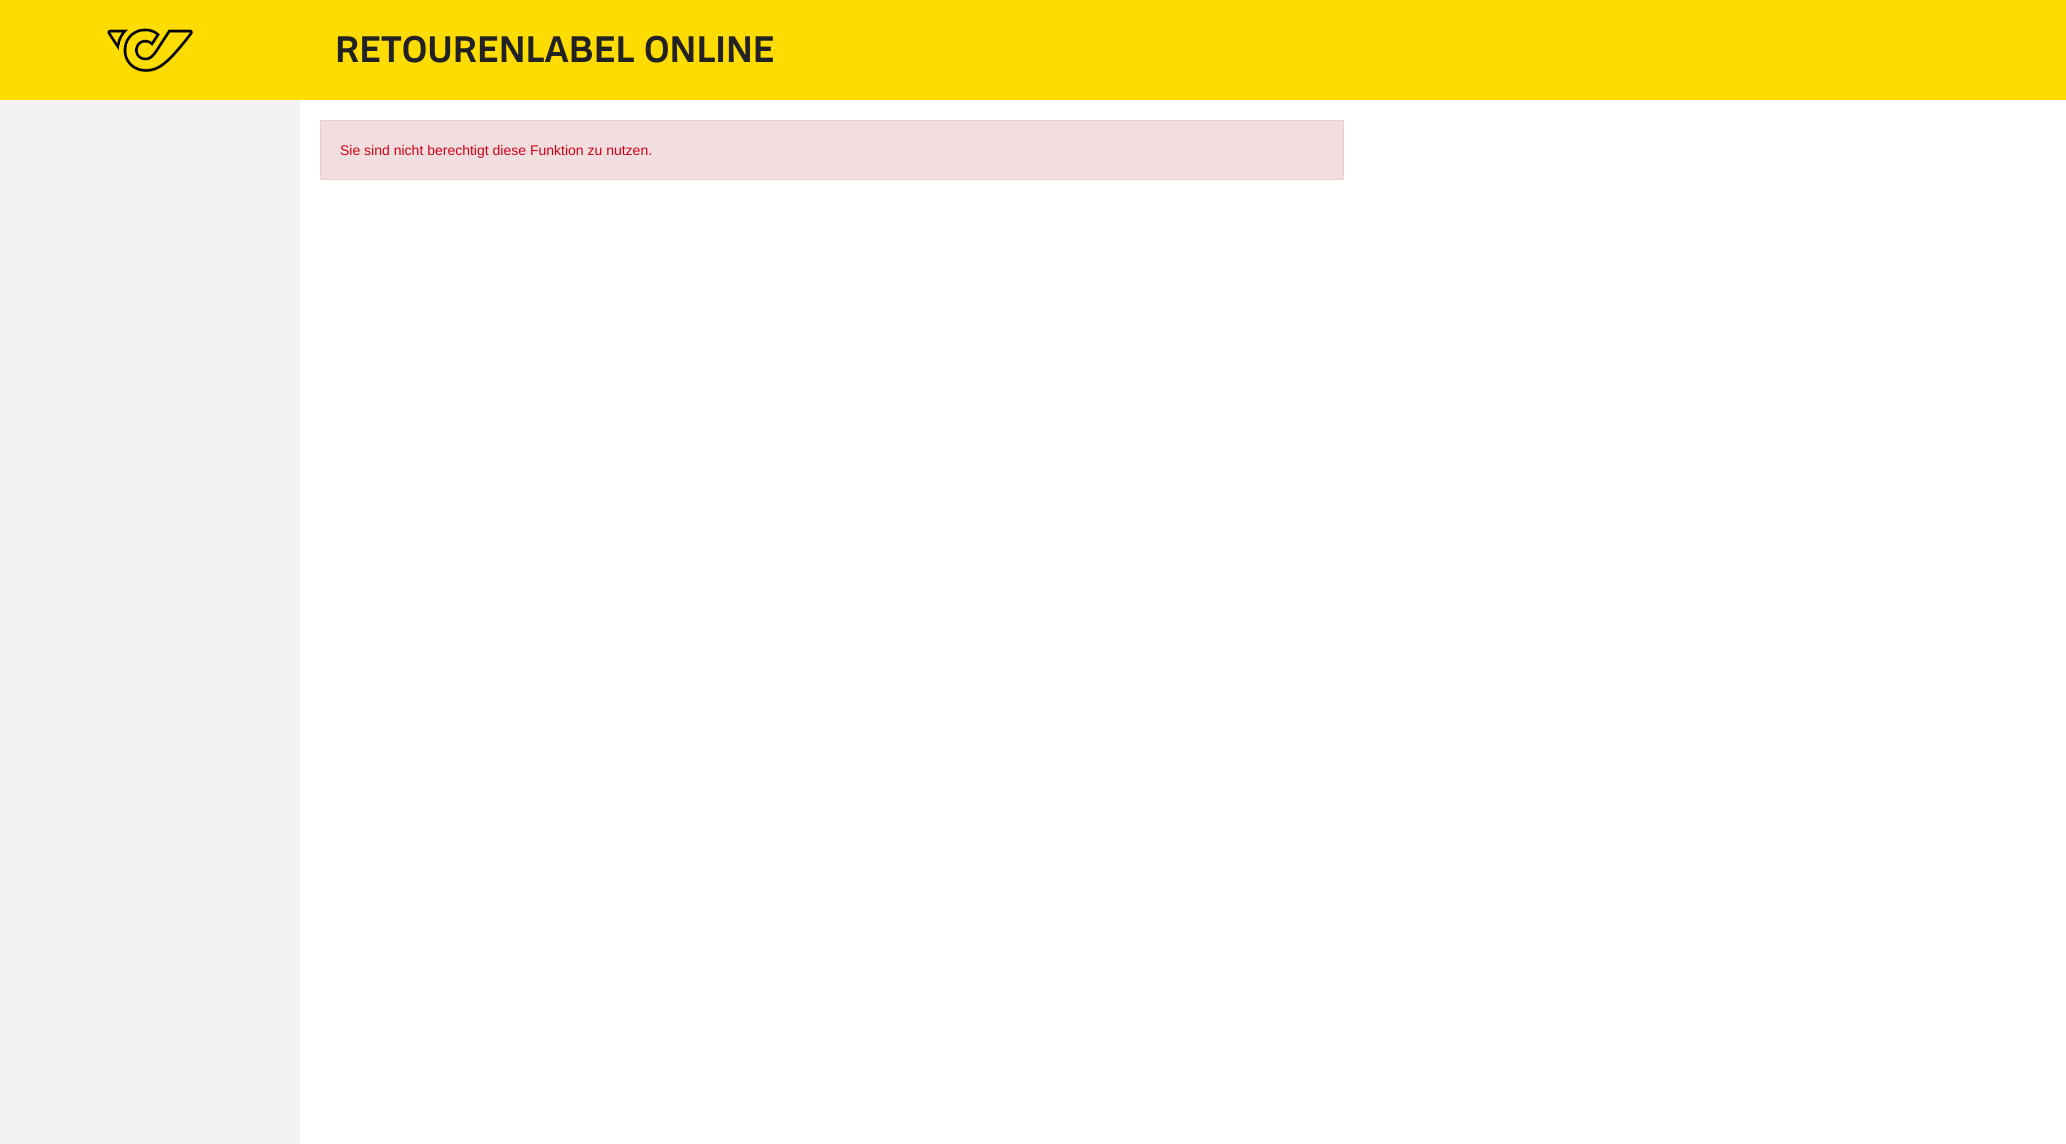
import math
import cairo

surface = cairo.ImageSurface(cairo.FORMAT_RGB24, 2066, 1144)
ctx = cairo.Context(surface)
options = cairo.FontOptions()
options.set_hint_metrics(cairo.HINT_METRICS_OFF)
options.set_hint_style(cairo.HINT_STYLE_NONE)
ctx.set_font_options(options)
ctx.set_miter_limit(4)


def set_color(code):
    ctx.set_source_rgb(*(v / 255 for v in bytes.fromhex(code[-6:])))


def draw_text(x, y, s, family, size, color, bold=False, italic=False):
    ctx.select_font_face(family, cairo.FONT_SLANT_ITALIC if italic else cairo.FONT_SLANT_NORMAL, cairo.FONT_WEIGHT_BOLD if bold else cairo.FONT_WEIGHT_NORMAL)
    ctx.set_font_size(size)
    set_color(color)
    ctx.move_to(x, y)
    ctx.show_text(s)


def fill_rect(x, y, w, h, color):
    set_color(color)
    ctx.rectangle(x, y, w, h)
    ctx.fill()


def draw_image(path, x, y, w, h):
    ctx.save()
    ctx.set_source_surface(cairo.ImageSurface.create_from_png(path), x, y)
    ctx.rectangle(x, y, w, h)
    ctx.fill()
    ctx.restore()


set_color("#ffffff")
ctx.paint()
fill_rect(0, 100, 300, 1044, "#f2f2f2")
fill_rect(0, 0, 2066, 100, "#ffdc00")
draw_image("assets/img1.png", 107, 28, 87, 44)
draw_text(335, 62, "RETOURENLABEL ONLINE", "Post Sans", 36, "#222222", bold=True)
set_color("#f2dede")
ctx.rectangle(320.5, 120.5, 1023, 59)
ctx.fill_preserve()
set_color("#ebccd1")
ctx.set_line_width(1)
ctx.stroke()
draw_text(340, 155, "Sie sind nicht berechtigt diese Funktion zu nutzen.", "Liberation Sans", 14, "#d10019")
surface.write_to_png("output.png")
